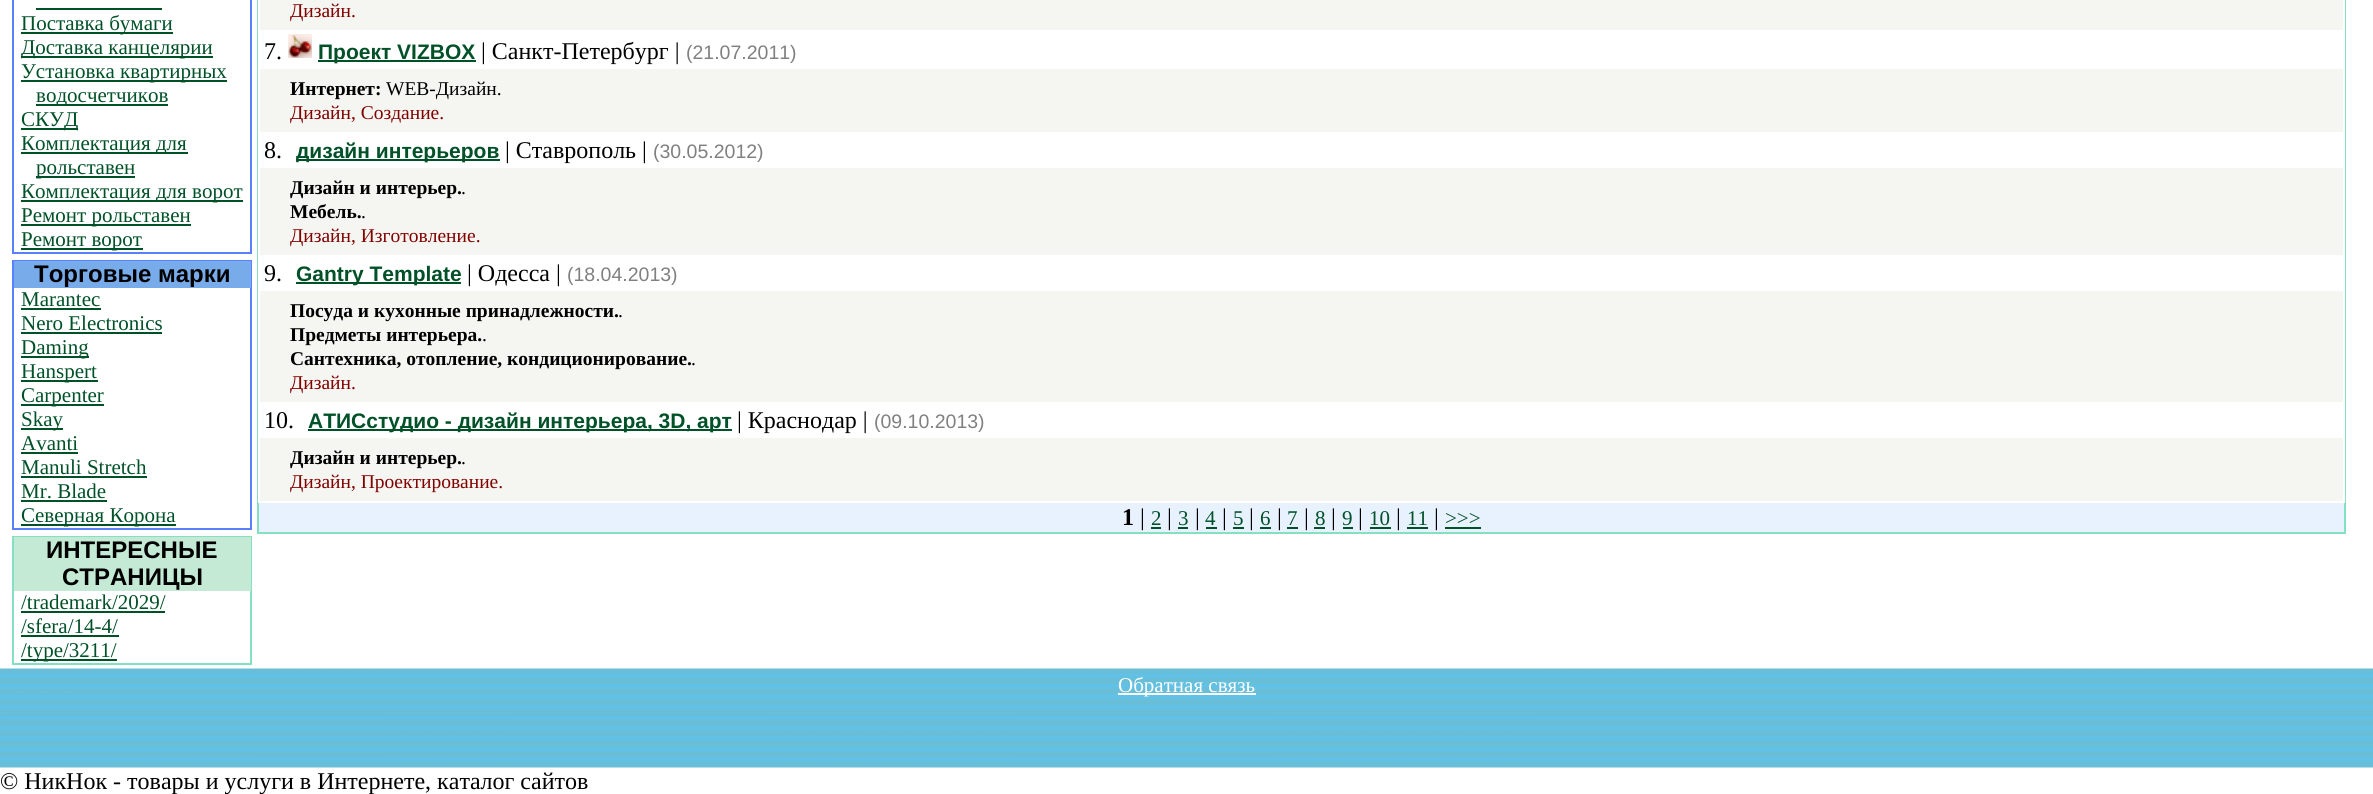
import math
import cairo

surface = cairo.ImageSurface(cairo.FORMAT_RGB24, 2373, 794)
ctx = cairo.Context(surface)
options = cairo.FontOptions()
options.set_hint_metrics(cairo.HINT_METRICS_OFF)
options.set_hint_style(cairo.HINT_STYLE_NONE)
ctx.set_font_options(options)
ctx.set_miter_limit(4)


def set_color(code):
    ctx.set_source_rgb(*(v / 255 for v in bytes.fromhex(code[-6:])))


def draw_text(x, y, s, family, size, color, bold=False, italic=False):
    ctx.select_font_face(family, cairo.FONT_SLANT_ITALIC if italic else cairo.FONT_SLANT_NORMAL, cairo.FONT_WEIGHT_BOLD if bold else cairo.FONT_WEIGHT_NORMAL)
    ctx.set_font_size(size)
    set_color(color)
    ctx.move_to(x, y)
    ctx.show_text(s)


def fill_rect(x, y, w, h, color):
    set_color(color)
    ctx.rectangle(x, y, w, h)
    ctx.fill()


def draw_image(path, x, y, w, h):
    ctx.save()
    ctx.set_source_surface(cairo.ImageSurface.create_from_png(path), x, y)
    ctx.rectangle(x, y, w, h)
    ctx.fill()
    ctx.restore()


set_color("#ffffff")
ctx.paint()
ctx.rectangle(13, -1, 238, 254)
set_color("#5a80fe")
ctx.stroke()
fill_rect(36, 8, 126, 2, "#005128")
fill_rect(21, 32, 152, 2, "#005128")
draw_text(21, 30, "Поставка бумаги", "Liberation Serif", 21, "#005128")
fill_rect(21, 56, 192, 2, "#005128")
draw_text(21, 54, "Доставка канцелярии", "Liberation Serif", 21, "#005128")
fill_rect(21, 80, 206, 2, "#005128")
draw_text(21, 78, "Установка квартирных", "Liberation Serif", 21, "#005128")
fill_rect(36, 104, 132, 2, "#005128")
draw_text(36, 102, "водосчетчиков", "Liberation Serif", 21, "#005128")
fill_rect(21, 128, 57, 2, "#005128")
draw_text(21, 126, "СКУД", "Liberation Serif", 21, "#005128")
fill_rect(21, 152, 167, 2, "#005128")
draw_text(21, 150, "Комплектация для", "Liberation Serif", 21, "#005128")
fill_rect(36, 176, 99, 2, "#005128")
draw_text(36, 174, "рольставен", "Liberation Serif", 21, "#005128")
fill_rect(21, 200, 222, 2, "#005128")
draw_text(21, 198, "Комплектация для ворот", "Liberation Serif", 21, "#005128")
fill_rect(21, 224, 170, 2, "#005128")
draw_text(21, 222, "Ремонт рольставен", "Liberation Serif", 21, "#005128")
fill_rect(21, 248, 122, 2, "#005128")
draw_text(21, 246, "Ремонт ворот", "Liberation Serif", 21, "#005128")
ctx.rectangle(13, 261, 238, 268)
set_color("#5a80fe")
ctx.stroke()
fill_rect(14, 261, 237, 27, "#78abe9")
draw_text(34, 282, "Торговые марки", "Liberation Sans", 24, "#000000", bold=True)
draw_text(21, 306, "Marantec", "Liberation Serif", 21, "#005128")
fill_rect(21, 308, 80, 2, "#005128")
draw_text(21, 330, "Nero Electronics", "Liberation Serif", 21, "#005128")
fill_rect(21, 332, 141, 2, "#005128")
fill_rect(21, 356, 68, 2, "#005128")
draw_text(21, 354, "Daming", "Liberation Serif", 21, "#005128")
fill_rect(21, 380, 77, 2, "#005128")
draw_text(21, 378, "Hanspert", "Liberation Serif", 21, "#005128")
fill_rect(21, 404, 83, 2, "#005128")
draw_text(21, 402, "Carpenter", "Liberation Serif", 21, "#005128")
fill_rect(21, 428, 42, 2, "#005128")
draw_text(21, 426, "Skay", "Liberation Serif", 21, "#005128")
draw_text(21, 450, "Avanti", "Liberation Serif", 21, "#005128")
fill_rect(21, 452, 57, 2, "#005128")
draw_text(21, 474, "Manuli Stretch", "Liberation Serif", 21, "#005128")
fill_rect(21, 476, 126, 2, "#005128")
draw_text(21, 498, "Mr. Blade", "Liberation Serif", 21, "#005128")
fill_rect(21, 500, 86, 2, "#005128")
fill_rect(21, 524, 155, 2, "#005128")
draw_text(21, 522, "Северная Корона", "Liberation Serif", 21, "#005128")
ctx.rectangle(13, 537, 238, 127)
set_color("#85e0c2")
ctx.stroke()
fill_rect(14, 537, 237, 54, "#c4ead6")
draw_text(46, 558, "ИНТЕРЕСНЫЕ", "Liberation Sans", 24, "#000000", bold=True)
draw_text(62, 585, "СТРАНИЦЫ", "Liberation Sans", 24, "#000000", bold=True)
draw_text(21, 609, "/trademark/2029/", "Liberation Serif", 21, "#005128")
fill_rect(21, 611, 144, 2, "#005128")
draw_text(21, 633, "/sfera/14-4/", "Liberation Serif", 21, "#005128")
fill_rect(21, 635, 98, 2, "#005128")
fill_rect(21, 659, 96, 2, "#005128")
draw_text(21, 657, "/type/3211/", "Liberation Serif", 21, "#005128")
fill_rect(259, 503, 2085, 29, "#e8f2ff")
ctx.rectangle(258, -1, 2087, 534)
set_color("#85e0c2")
ctx.stroke()
fill_rect(258, 0, 2087, 503, "#ffffff")
fill_rect(260, 0, 2083, 30, "#f5f5f1")
draw_text(290, 17, "Дизайн.", "Liberation Serif", 19.5, "#800000")
draw_text(264, 59, "7.", "Liberation Serif", 24, "#000000")
draw_image("assets/img1.png", 288, 34, 24, 24)
fill_rect(318, 60, 158, 2, "#005128")
draw_text(318, 59, "Проект VIZBOX", "Liberation Sans", 21, "#005128", bold=True)
draw_text(481, 59, "| Санкт-Петербург |", "Liberation Serif", 24, "#000000")
draw_text(686, 59, "(21.07.2011)", "Liberation Sans", 19.5, "#808080")
fill_rect(260, 69, 2083, 63, "#f5f5f1")
draw_text(290, 95, "Интернет:", "Liberation Serif", 19.5, "#000000", bold=True)
draw_text(386, 95, "WEB-Дизайн.", "Liberation Serif", 19.5, "#000000")
draw_text(290, 119, "Дизайн, Создание.", "Liberation Serif", 19.5, "#800000")
draw_text(264, 158, "8.", "Liberation Serif", 24, "#000000")
fill_rect(296, 159, 204, 2, "#005128")
draw_text(296, 158, "дизайн интерьеров", "Liberation Sans", 21, "#005128", bold=True)
draw_text(505, 158, "| Ставрополь |", "Liberation Serif", 24, "#000000")
draw_text(653, 158, "(30.05.2012)", "Liberation Sans", 19.5, "#808080")
fill_rect(260, 168, 2083, 87, "#f5f5f1")
draw_text(290, 194, "Дизайн и интерьер.", "Liberation Serif", 19.5, "#000000", bold=True)
draw_text(461, 194, ".", "Liberation Serif", 19.5, "#000000")
draw_text(290, 218, "Мебель.", "Liberation Serif", 19.5, "#000000", bold=True)
draw_text(361, 218, ".", "Liberation Serif", 19.5, "#000000")
draw_text(290, 242, "Дизайн, Изготовление.", "Liberation Serif", 19.5, "#800000")
draw_text(264, 281, "9.", "Liberation Serif", 24, "#000000")
fill_rect(296, 282, 165, 2, "#005128")
draw_text(296, 281, "Gantry Template", "Liberation Sans", 21, "#005128", bold=True)
draw_text(467, 281, "| Одесса |", "Liberation Serif", 24, "#000000")
draw_text(567, 281, "(18.04.2013)", "Liberation Sans", 19.5, "#808080")
fill_rect(260, 291, 2083, 111, "#f5f5f1")
draw_text(290, 317, "Посуда и кухонные принадлежности.", "Liberation Serif", 19.5, "#000000", bold=True)
draw_text(618, 317, ".", "Liberation Serif", 19.5, "#000000")
draw_text(290, 341, "Предметы интерьера.", "Liberation Serif", 19.5, "#000000", bold=True)
draw_text(482, 341, ".", "Liberation Serif", 19.5, "#000000")
draw_text(290, 365, "Сантехника, отопление, кондиционирование.", "Liberation Serif", 19.5, "#000000", bold=True)
draw_text(691, 365, ".", "Liberation Serif", 19.5, "#000000")
draw_text(290, 389, "Дизайн.", "Liberation Serif", 19.5, "#800000")
draw_text(264, 428, "10.", "Liberation Serif", 24, "#000000")
fill_rect(308, 429, 424, 2, "#005128")
draw_text(308, 428, "АТИСстудио - дизайн интерьера, 3D, арт", "Liberation Sans", 21, "#005128", bold=True)
draw_text(737, 428, "| Краснодар |", "Liberation Serif", 24, "#000000")
draw_text(874, 428, "(09.10.2013)", "Liberation Sans", 19.5, "#808080")
fill_rect(260, 438, 2083, 63, "#f5f5f1")
draw_text(290, 464, "Дизайн и интерьер.", "Liberation Serif", 19.5, "#000000", bold=True)
draw_text(461, 464, ".", "Liberation Serif", 19.5, "#000000")
draw_text(290, 488, "Дизайн, Проектирование.", "Liberation Serif", 19.5, "#800000")
draw_text(1122, 525, "1", "Liberation Serif", 24, "#000000", bold=True)
draw_text(1140, 525, "|", "Liberation Serif", 24, "#000000")
draw_text(1151, 525, "2", "Liberation Serif", 21, "#005128")
fill_rect(1151, 527, 10, 2, "#005128")
draw_text(1167, 525, "|", "Liberation Serif", 24, "#000000")
draw_text(1178, 525, "3", "Liberation Serif", 21, "#005128")
fill_rect(1178, 527, 10, 2, "#005128")
draw_text(1195, 525, "|", "Liberation Serif", 24, "#000000")
draw_text(1205, 525, "4", "Liberation Serif", 21, "#005128")
fill_rect(1206, 527, 11, 2, "#005128")
draw_text(1222, 525, "|", "Liberation Serif", 24, "#000000")
draw_text(1233, 525, "5", "Liberation Serif", 21, "#005128")
fill_rect(1233, 527, 11, 2, "#005128")
draw_text(1249, 525, "|", "Liberation Serif", 24, "#000000")
draw_text(1260, 525, "6", "Liberation Serif", 21, "#005128")
fill_rect(1260, 527, 11, 2, "#005128")
draw_text(1277, 525, "|", "Liberation Serif", 24, "#000000")
draw_text(1287, 525, "7", "Liberation Serif", 21, "#005128")
fill_rect(1287, 527, 11, 2, "#005128")
draw_text(1304, 525, "|", "Liberation Serif", 24, "#000000")
draw_text(1315, 525, "8", "Liberation Serif", 21, "#005128")
fill_rect(1314, 527, 11, 2, "#005128")
draw_text(1331, 525, "|", "Liberation Serif", 24, "#000000")
draw_text(1342, 525, "9", "Liberation Serif", 21, "#005128")
fill_rect(1343, 527, 10, 2, "#005128")
draw_text(1358, 525, "|", "Liberation Serif", 24, "#000000")
draw_text(1369, 525, "10", "Liberation Serif", 21, "#005128")
fill_rect(1370, 527, 21, 2, "#005128")
draw_text(1396, 525, "|", "Liberation Serif", 24, "#000000")
draw_text(1407, 525, "11", "Liberation Serif", 21, "#005128")
fill_rect(1407, 527, 21, 2, "#005128")
draw_text(1434, 525, "|", "Liberation Serif", 24, "#000000")
draw_text(1445, 525, ">>>", "Liberation Serif", 21, "#005128")
fill_rect(1445, 527, 36, 2, "#005128")
draw_image("assets/img2.png", 0, 668, 2373, 100)
fill_rect(1118, 693, 138, 2, "#ffffff")
draw_text(1118, 692, "Обратная связь", "Liberation Serif", 21, "#ffffff")
draw_text(0, 789, "© НикНок - товары и услуги в Интернете, каталог сайтов", "Liberation Serif", 24, "#000000")
surface.write_to_png("output.png")
